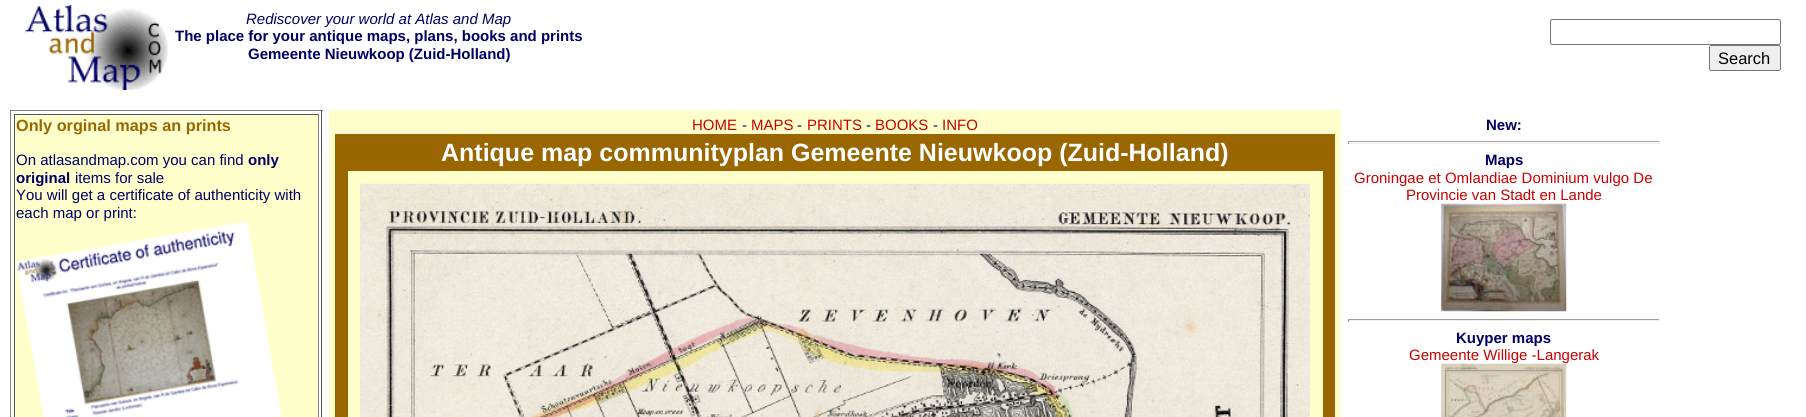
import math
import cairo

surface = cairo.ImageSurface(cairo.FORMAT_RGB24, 1806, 417)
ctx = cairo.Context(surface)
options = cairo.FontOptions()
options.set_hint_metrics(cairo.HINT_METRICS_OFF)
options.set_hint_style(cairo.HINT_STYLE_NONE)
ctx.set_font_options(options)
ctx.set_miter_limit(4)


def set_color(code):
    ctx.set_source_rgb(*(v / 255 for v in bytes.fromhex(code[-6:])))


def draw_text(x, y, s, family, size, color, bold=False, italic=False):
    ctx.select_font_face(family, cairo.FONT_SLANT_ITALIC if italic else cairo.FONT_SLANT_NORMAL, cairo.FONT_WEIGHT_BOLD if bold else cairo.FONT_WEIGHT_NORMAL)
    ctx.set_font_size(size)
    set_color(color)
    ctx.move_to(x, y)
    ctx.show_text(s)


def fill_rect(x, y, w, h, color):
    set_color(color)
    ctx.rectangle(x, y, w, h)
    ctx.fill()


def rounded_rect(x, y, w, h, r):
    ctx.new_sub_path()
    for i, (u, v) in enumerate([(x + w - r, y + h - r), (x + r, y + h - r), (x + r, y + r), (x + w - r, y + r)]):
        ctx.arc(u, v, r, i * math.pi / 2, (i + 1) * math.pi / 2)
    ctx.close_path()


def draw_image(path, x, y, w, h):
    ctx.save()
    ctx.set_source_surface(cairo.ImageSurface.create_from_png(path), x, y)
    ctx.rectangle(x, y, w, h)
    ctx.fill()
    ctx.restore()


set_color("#ffffff")
ctx.paint()
draw_image("assets/img1.png", 25, 4, 143, 86)
draw_text(246, 24, "Rediscover your world at Atlas and Map", "Liberation Sans", 15, "#000066", italic=True)
draw_text(175, 41, "The place for your antique maps, plans, books and prints", "Liberation Sans", 15, "#000066", bold=True)
draw_text(248, 59, "Gemeente Nieuwkoop (Zuid-Holland)", "Liberation Sans", 15, "#000066", bold=True)
rounded_rect(1550.5, 19.5, 230, 25, 2)
set_color("#767676")
ctx.set_line_width(1)
ctx.stroke()
set_color("#efefef")
rounded_rect(1709.5, 45.5, 71, 25, 2)
ctx.fill_preserve()
set_color("#767676")
ctx.stroke()
draw_text(1718, 64, "Search", "Liberation Sans", 16.5, "#000000")
fill_rect(10, 110, 313, 1, "#808080")
fill_rect(321, 110, 1, 307, "#555555")
fill_rect(10, 110, 1, 307, "#808080")
fill_rect(15, 115, 303, 302, "#ffffcc")
fill_rect(14, 114, 305, 1, "#555555")
fill_rect(318, 114, 1, 303, "#808080")
fill_rect(14, 114, 1, 303, "#555555")
draw_text(16, 131, "Only orginal maps an prints", "Liberation Sans", 16.25, "#996600", bold=True)
draw_text(16, 165, "On atlasandmap.com you can find", "Liberation Sans", 15, "#000066")
draw_text(248, 165, "only", "Liberation Sans", 15, "#000066", bold=True)
draw_text(16, 183, "original", "Liberation Sans", 15, "#000066", bold=True)
draw_text(75, 183, "items for sale", "Liberation Sans", 15, "#000066")
draw_text(16, 200, "You will get a certificate of authenticity with", "Liberation Sans", 15, "#000066")
draw_text(16, 218, "each map or print:", "Liberation Sans", 15, "#000066")
draw_image("assets/img2.png", 16, 221, 266, 196)
fill_rect(329, 110, 1012, 307, "#ffffcc")
draw_text(692, 130, "HOME", "Liberation Sans", 15, "#cc0000")
draw_text(742, 130, "-", "Liberation Sans", 15, "#000066")
draw_text(751, 130, "MAPS", "Liberation Sans", 15, "#cc0000")
draw_text(797, 130, "-", "Liberation Sans", 15, "#000066")
draw_text(807, 130, "PRINTS", "Liberation Sans", 15, "#cc0000")
draw_text(866, 130, "-", "Liberation Sans", 15, "#000066")
draw_text(875, 130, "BOOKS", "Liberation Sans", 15, "#cc0000")
draw_text(933, 130, "-", "Liberation Sans", 15, "#000066")
draw_text(942, 130, "INFO", "Liberation Sans", 15, "#cc0000")
fill_rect(335, 134, 1000, 37, "#996600")
draw_text(441, 161, "Antique map communityplan Gemeente Nieuwkoop (Zuid-Holland)", "Liberation Sans", 25, "#ffffff", bold=True)
fill_rect(335, 171, 13, 246, "#996600")
draw_image("assets/img3.png", 360, 183, 950, 234)
fill_rect(1323, 171, 12, 246, "#996600")
draw_text(1486, 130, "New:", "Liberation Sans", 15, "#000066", bold=True)
fill_rect(1348, 141, 312, 1, "#9f9f9f")
fill_rect(1659, 141, 1, 3, "#eeeeee")
fill_rect(1348, 143, 312, 1, "#eeeeee")
fill_rect(1348, 141, 1, 3, "#9f9f9f")
draw_text(1485, 165, "Maps", "Liberation Sans", 15, "#000066", bold=True)
draw_text(1354, 183, "Groningae et Omlandiae Dominium vulgo De", "Liberation Sans", 15, "#cc0000")
draw_text(1406, 200, "Provincie van Stadt en Lande", "Liberation Sans", 15, "#cc0000")
draw_image("assets/img4.png", 1441, 203, 126, 109)
fill_rect(1348, 319, 312, 1, "#9f9f9f")
fill_rect(1659, 319, 1, 3, "#eeeeee")
fill_rect(1348, 320, 312, 1, "#eeeeee")
fill_rect(1348, 319, 1, 3, "#9f9f9f")
draw_text(1456, 343, "Kuyper maps", "Liberation Sans", 15, "#000066", bold=True)
draw_text(1409, 360, "Gemeente Willige -Langerak", "Liberation Sans", 15, "#cc0000")
draw_image("assets/img5.png", 1441, 363, 126, 54)
surface.write_to_png("output.png")
